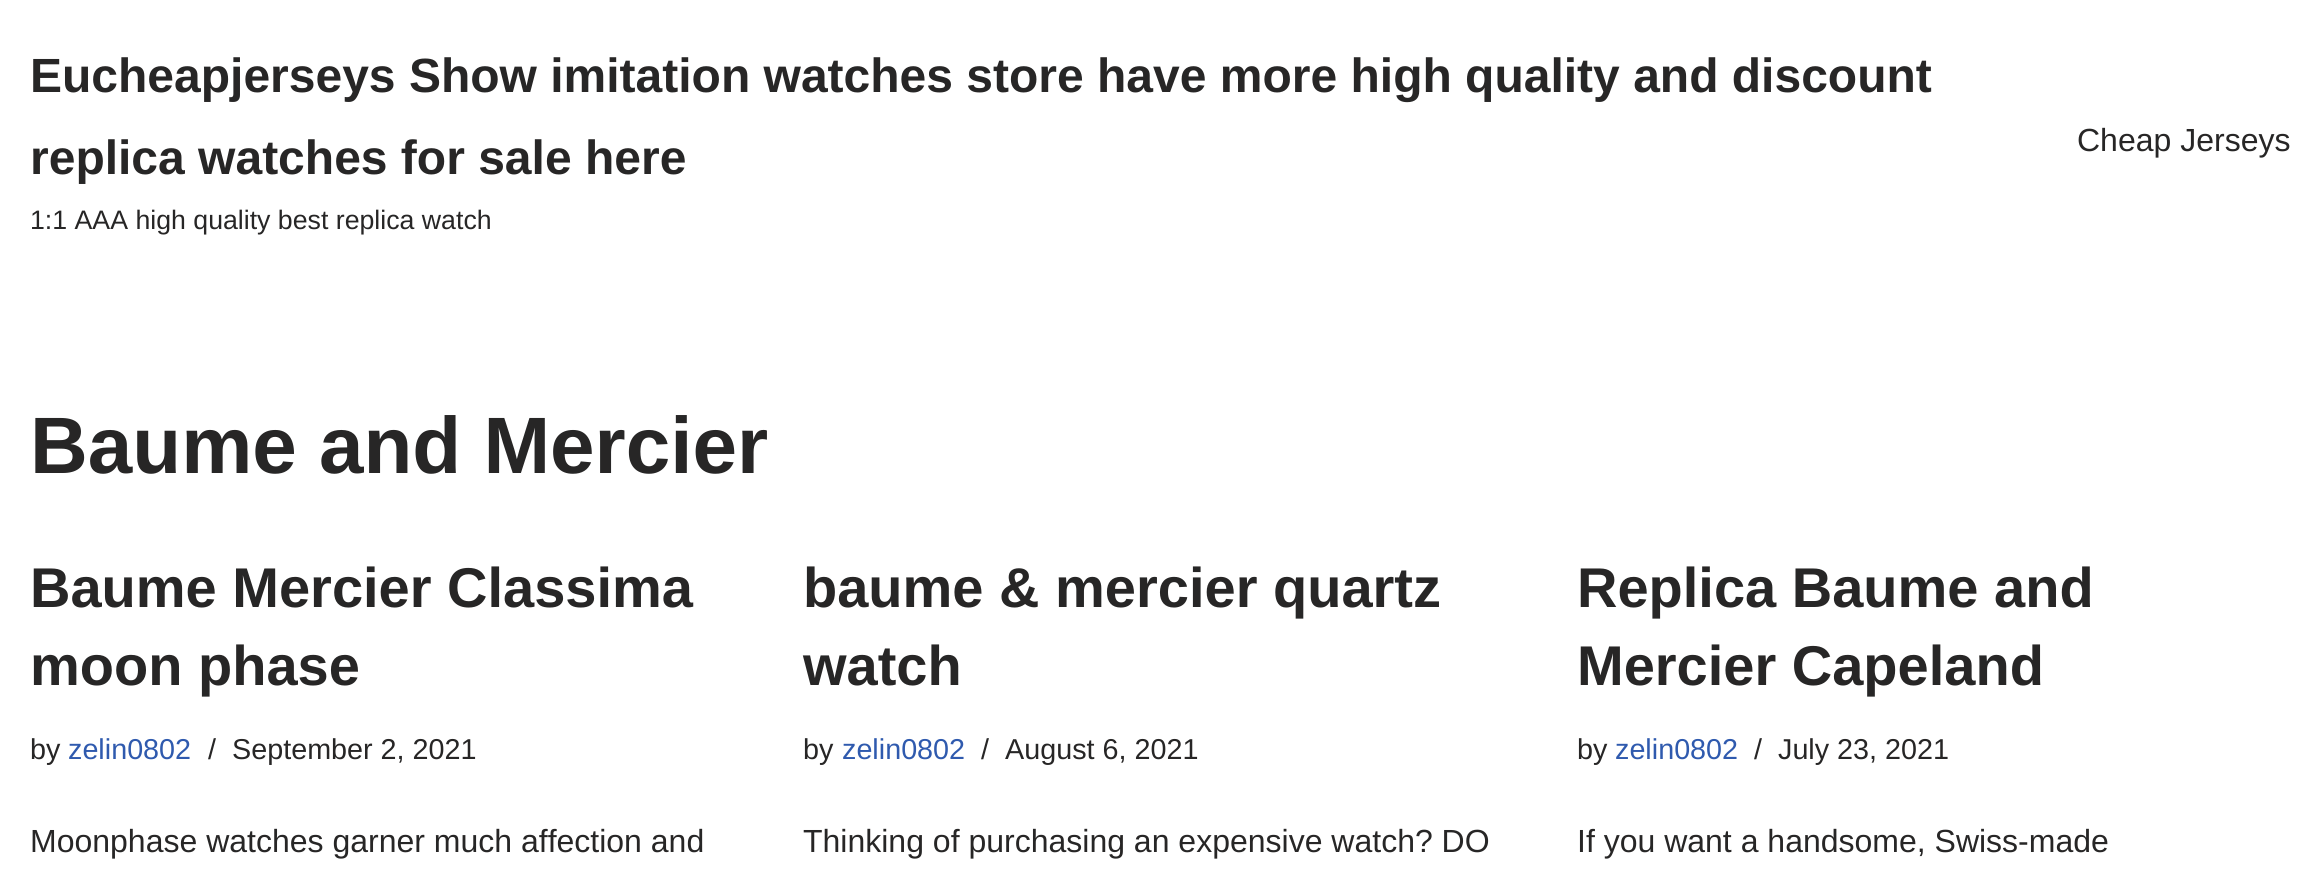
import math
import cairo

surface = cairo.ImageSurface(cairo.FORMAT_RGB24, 2320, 870)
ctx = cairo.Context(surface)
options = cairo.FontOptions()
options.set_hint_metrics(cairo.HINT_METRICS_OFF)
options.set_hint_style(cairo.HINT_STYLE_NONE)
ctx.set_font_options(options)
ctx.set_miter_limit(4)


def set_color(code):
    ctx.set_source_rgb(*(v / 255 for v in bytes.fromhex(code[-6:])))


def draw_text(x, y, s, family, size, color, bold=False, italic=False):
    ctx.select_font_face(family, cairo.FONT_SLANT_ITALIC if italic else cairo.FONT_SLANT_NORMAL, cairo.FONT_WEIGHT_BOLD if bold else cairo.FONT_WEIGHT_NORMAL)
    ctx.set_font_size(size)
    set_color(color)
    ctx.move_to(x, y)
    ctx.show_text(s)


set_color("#ffffff")
ctx.paint()
draw_text(30, 92, "Eucheapjerseys Show imitation watches store have more high quality and discount", "Liberation Sans", 48, "#272626", bold=True)
draw_text(30, 174, "replica watches for sale here", "Liberation Sans", 48, "#272626", bold=True)
draw_text(30, 229, "1:1 AAA high quality best replica watch", "Liberation Sans", 26.7, "#272626")
draw_text(2077, 151, "Cheap Jerseys", "Liberation Sans", 32, "#272626")
draw_text(30, 473, "Baume and Mercier", "Liberation Sans", 80, "#272626", bold=True)
draw_text(30, 607, "Baume Mercier Classima", "Liberation Sans", 56, "#272626", bold=True)
draw_text(30, 685, "moon phase", "Liberation Sans", 56, "#272626", bold=True)
draw_text(30, 759, "by", "Liberation Sans", 28.75, "#272626")
draw_text(68, 759, "zelin0802", "Liberation Sans", 28.75, "#2f5aae")
draw_text(208, 759, "/", "Liberation Sans", 28.75, "#272626")
draw_text(232, 759, "September 2, 2021", "Liberation Sans", 28.75, "#272626")
draw_text(30, 852, "Moonphase watches garner much affection and", "Liberation Sans", 32, "#272626")
draw_text(803, 607, "baume & mercier quartz", "Liberation Sans", 56, "#272626", bold=True)
draw_text(803, 685, "watch", "Liberation Sans", 56, "#272626", bold=True)
draw_text(803, 759, "by", "Liberation Sans", 28.75, "#272626")
draw_text(842, 759, "zelin0802", "Liberation Sans", 28.75, "#2f5aae")
draw_text(981, 759, "/", "Liberation Sans", 28.75, "#272626")
draw_text(1005, 759, "August 6, 2021", "Liberation Sans", 28.75, "#272626")
draw_text(803, 852, "Thinking of purchasing an expensive watch? DO", "Liberation Sans", 32, "#272626")
draw_text(1577, 607, "Replica Baume and", "Liberation Sans", 56, "#272626", bold=True)
draw_text(1577, 685, "Mercier Capeland", "Liberation Sans", 56, "#272626", bold=True)
draw_text(1577, 759, "by", "Liberation Sans", 28.75, "#272626")
draw_text(1615, 759, "zelin0802", "Liberation Sans", 28.75, "#2f5aae")
draw_text(1754, 759, "/", "Liberation Sans", 28.75, "#272626")
draw_text(1778, 759, "July 23, 2021", "Liberation Sans", 28.75, "#272626")
draw_text(1577, 852, "If you want a handsome, Swiss-made", "Liberation Sans", 32, "#272626")
surface.write_to_png("output.png")
